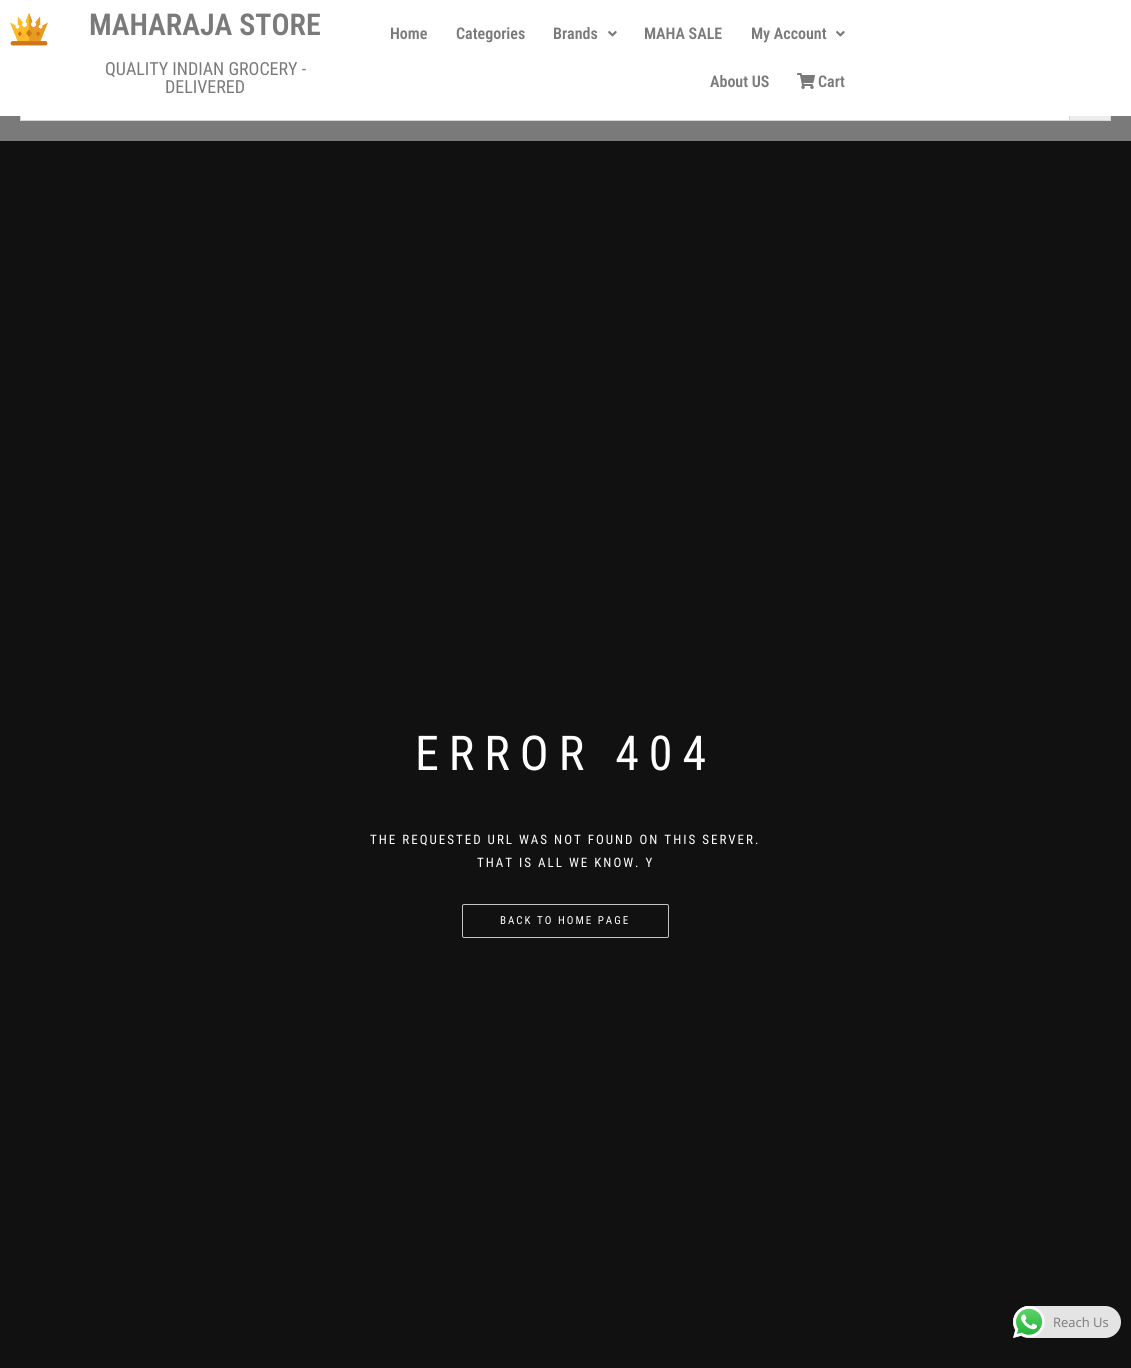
import math
import cairo

surface = cairo.ImageSurface(cairo.FORMAT_RGB24, 1131, 1368)
ctx = cairo.Context(surface)
options = cairo.FontOptions()
options.set_hint_metrics(cairo.HINT_METRICS_OFF)
options.set_hint_style(cairo.HINT_STYLE_NONE)
ctx.set_font_options(options)
ctx.set_miter_limit(4)


def set_color(code):
    ctx.set_source_rgb(*(v / 255 for v in bytes.fromhex(code[-6:])))


def draw_text(x, y, s, family, size, color, bold=False, italic=False):
    ctx.select_font_face(family, cairo.FONT_SLANT_ITALIC if italic else cairo.FONT_SLANT_NORMAL, cairo.FONT_WEIGHT_BOLD if bold else cairo.FONT_WEIGHT_NORMAL)
    ctx.set_font_size(size)
    set_color(color)
    ctx.move_to(x, y)
    ctx.show_text(s)


def draw_spaced(x, y, s, letter, word):
    ctx.move_to(x, y)
    for ch in s:
        ctx.show_text(ch)
        ctx.rel_move_to(letter + word * (ch == ' '), 0)


def fill_rect(x, y, w, h, color):
    set_color(color)
    ctx.rectangle(x, y, w, h)
    ctx.fill()


def rounded_rect(x, y, w, h, r):
    ctx.new_sub_path()
    for i, (u, v) in enumerate([(x + w - r, y + h - r), (x + r, y + h - r), (x + r, y + r), (x + w - r, y + r)]):
        ctx.arc(u, v, r, i * math.pi / 2, (i + 1) * math.pi / 2)
    ctx.close_path()


def draw_image(path, x, y, w, h):
    ctx.save()
    ctx.set_source_surface(cairo.ImageSurface.create_from_png(path), x, y)
    ctx.rectangle(x, y, w, h)
    ctx.fill()
    ctx.restore()


set_color("#111111")
ctx.paint()
fill_rect(0, 116, 1131, 25, "#7a7a7a")
fill_rect(21, 116, 1048, 4, "#ffffff")
fill_rect(1070, 116, 40, 4, "#ededed")
ctx.rectangle(1069.5, 77.5, 41, 43)
set_color("#d8d8d8")
ctx.set_line_width(1)
ctx.stroke()
ctx.rectangle(20.5, 77.5, 1049, 43)
ctx.stroke()
fill_rect(0, 0, 1131, 116, "#ffffff")
draw_image("assets/img1.png", 10, 13, 38, 33)
draw_text(89, 35, "MAHARAJA STORE", "Roboto Condensed SemiBold", 30, "#7a7a7a")
draw_text(105, 75, "QUALITY INDIAN GROCERY -", "Roboto Condensed", 18, "#7a7a7a")
draw_text(165, 93, "DELIVERED", "Roboto Condensed", 18, "#7a7a7a")
draw_text(390, 39, "Home", "Roboto Condensed SemiBold", 16, "#7a7a7a")
draw_text(456, 39, "Categories", "Roboto Condensed SemiBold", 16, "#7a7a7a")
draw_text(553, 39, "Brands", "Roboto Condensed SemiBold", 16, "#7a7a7a")
draw_image("assets/img2.png", 608, 31, 9, 6)
draw_text(644, 39, "MAHA SALE", "Roboto Condensed SemiBold", 16, "#7a7a7a")
draw_text(751, 39, "My Account", "Roboto Condensed SemiBold", 16, "#7a7a7a")
draw_image("assets/img2.png", 836, 31, 9, 6)
draw_text(710, 87, "About US", "Roboto Condensed SemiBold", 16, "#7a7a7a")
draw_image("assets/img3.png", 797, 73, 18, 16)
draw_text(818, 87, "Cart", "Roboto Condensed SemiBold", 16, "#7a7a7a")
ctx.select_font_face("Roboto Condensed")
ctx.set_font_size(48)
set_color("#ffffff")
draw_spaced(415, 770, "ERROR 404", 10, 0)
ctx.set_font_size(13)
draw_spaced(370, 844, "THE REQUESTED URL WAS NOT FOUND ON THIS SERVER.", 2, 0)
draw_spaced(477, 867, "THAT IS ALL WE KNOW. Y", 2, 0)
rounded_rect(462.5, 904.5, 206, 33, 1.5)
set_color("#c4c4c4")
ctx.stroke()
ctx.set_font_size(11)
set_color("#ffffff")
draw_spaced(500, 924, "BACK TO HOME PAGE", 2, 0)
set_color("#e4e4e4")
rounded_rect(1013, 1306, 108, 32, 16)
ctx.fill()
draw_image("assets/img4.png", 1013, 1306, 32, 32)
draw_text(1053, 1327, "Reach Us", "Open Sans", 13, "#7a7a7a")
surface.write_to_png("output.png")
